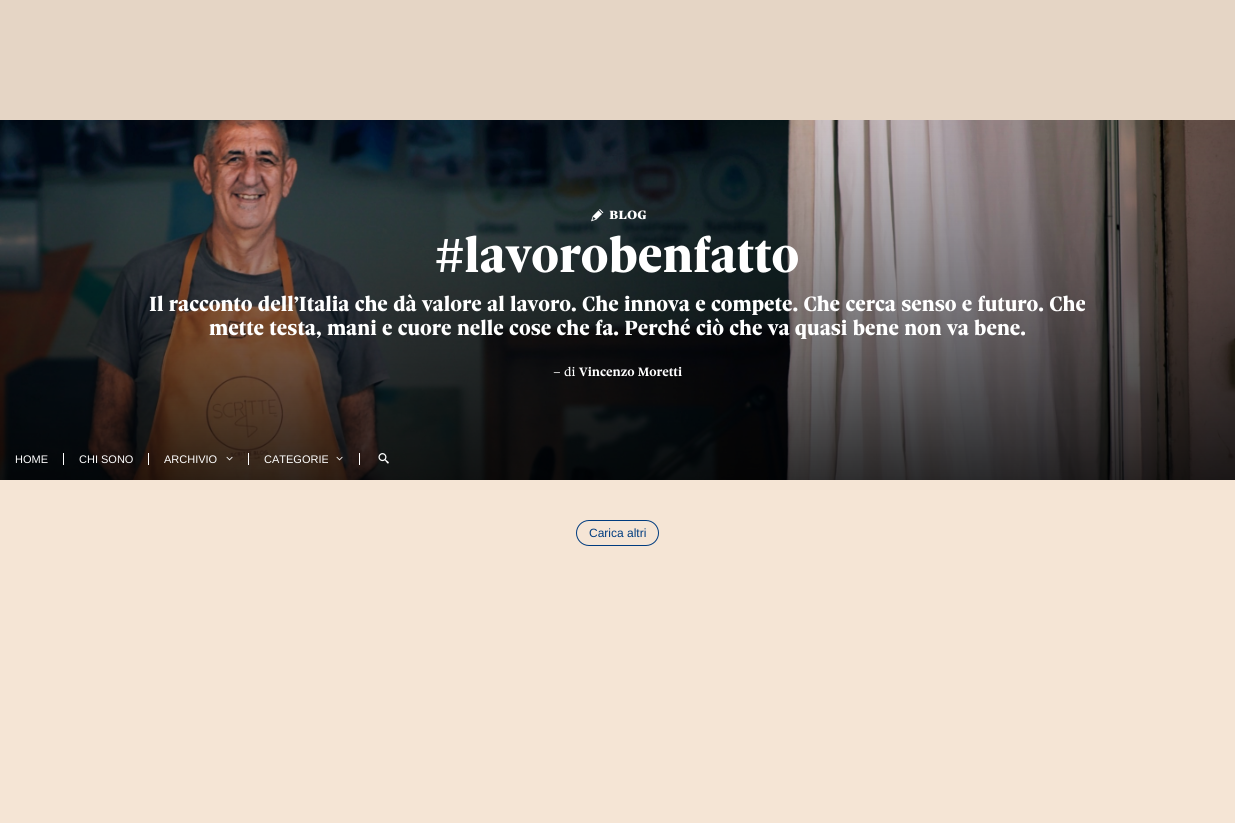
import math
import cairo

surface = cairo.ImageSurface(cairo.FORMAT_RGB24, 1235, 823)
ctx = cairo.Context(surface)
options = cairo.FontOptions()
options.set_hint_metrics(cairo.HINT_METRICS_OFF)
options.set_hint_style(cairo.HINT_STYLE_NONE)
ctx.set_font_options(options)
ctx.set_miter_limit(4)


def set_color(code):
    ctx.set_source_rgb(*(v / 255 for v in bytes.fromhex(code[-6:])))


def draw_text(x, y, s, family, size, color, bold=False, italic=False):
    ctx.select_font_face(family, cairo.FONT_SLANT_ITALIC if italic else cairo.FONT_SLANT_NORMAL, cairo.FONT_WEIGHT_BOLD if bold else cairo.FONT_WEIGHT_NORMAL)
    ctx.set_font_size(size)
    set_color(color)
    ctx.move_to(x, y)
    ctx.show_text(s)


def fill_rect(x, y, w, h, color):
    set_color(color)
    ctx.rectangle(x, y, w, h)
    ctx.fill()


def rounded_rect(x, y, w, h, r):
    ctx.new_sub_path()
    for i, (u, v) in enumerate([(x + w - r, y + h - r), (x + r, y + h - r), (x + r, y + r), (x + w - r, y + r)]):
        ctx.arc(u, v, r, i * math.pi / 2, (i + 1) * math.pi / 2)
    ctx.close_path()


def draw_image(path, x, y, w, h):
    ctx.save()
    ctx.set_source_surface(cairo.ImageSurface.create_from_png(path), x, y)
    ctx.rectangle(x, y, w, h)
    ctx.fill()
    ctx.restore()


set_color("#f5e5d5")
ctx.paint()
fill_rect(0, 0, 1235, 120, "#e5d5c5")
draw_image("assets/img1.png", 0, 120, 1235, 360)
draw_image("assets/img2.png", 591, 209, 13, 13)
draw_text(609, 219, "blog", "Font", 16, "#ffffff", bold=True)
draw_text(435, 272, "#lavorobenfatto", "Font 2", 52, "#ffffff", bold=True)
draw_text(149, 311, "Il racconto dell’Italia che dà valore al lavoro. Che innova e compete. Che cerca senso e futuro. Che", "Font 2", 22, "#ffffff", bold=True)
draw_text(209, 335, "mette testa, mani e cuore nelle cose che fa. Perché ciò che va quasi bene non va bene.", "Font 2", 22, "#ffffff", bold=True)
draw_text(553, 376, "– di", "Font", 13, "#ffffff")
draw_text(579, 376, "Vincenzo Moretti", "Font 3", 13, "#ffffff", bold=True)
fill_rect(63, 453, 1, 12, "#ffffff")
draw_text(15, 463, "HOME", "Liberation Sans", 11, "#ffffff")
fill_rect(148, 453, 1, 12, "#ffffff")
draw_text(79, 463, "CHI SONO", "Liberation Sans", 11, "#ffffff")
fill_rect(248, 453, 1, 12, "#ffffff")
draw_text(164, 463, "ARCHIVIO", "Liberation Sans", 11, "#ffffff")
draw_image("assets/img3.png", 226, 456, 7, 5)
fill_rect(359, 453, 1, 12, "#ffffff")
draw_text(264, 463, "CATEGORIE", "Liberation Sans", 11, "#ffffff")
draw_image("assets/img4.png", 336, 456, 7, 5)
draw_image("assets/img5.png", 378, 453, 11, 11)
rounded_rect(576.5, 520.5, 82, 25, 12.5)
set_color("#003c7f")
ctx.set_line_width(1)
ctx.stroke()
draw_text(589, 537, "Carica altri", "Liberation Sans", 12, "#003c7f")
surface.write_to_png("output.png")
